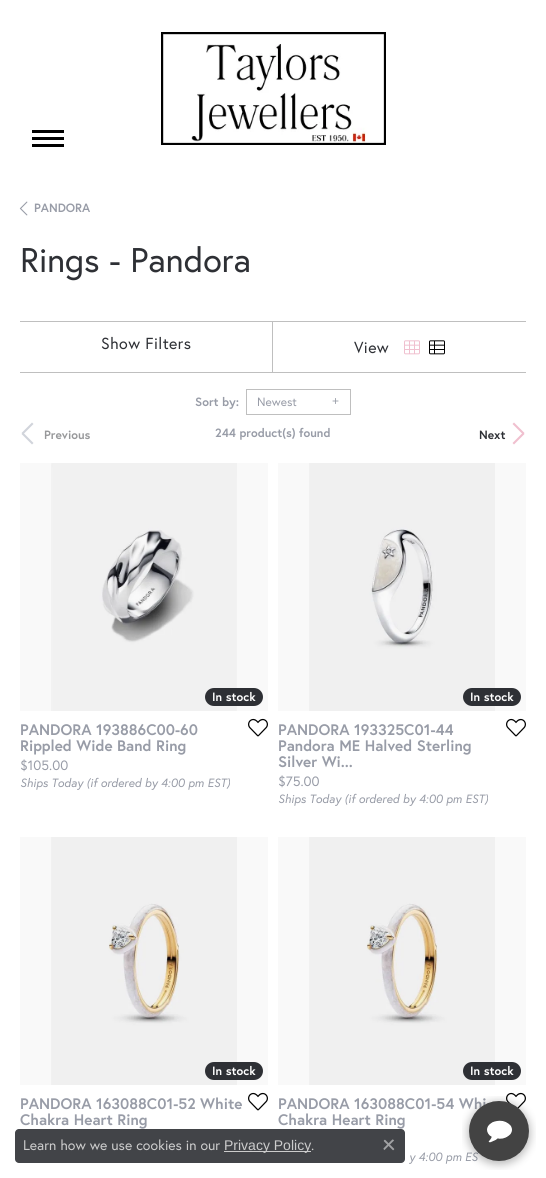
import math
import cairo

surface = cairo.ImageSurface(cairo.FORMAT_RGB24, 546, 1178)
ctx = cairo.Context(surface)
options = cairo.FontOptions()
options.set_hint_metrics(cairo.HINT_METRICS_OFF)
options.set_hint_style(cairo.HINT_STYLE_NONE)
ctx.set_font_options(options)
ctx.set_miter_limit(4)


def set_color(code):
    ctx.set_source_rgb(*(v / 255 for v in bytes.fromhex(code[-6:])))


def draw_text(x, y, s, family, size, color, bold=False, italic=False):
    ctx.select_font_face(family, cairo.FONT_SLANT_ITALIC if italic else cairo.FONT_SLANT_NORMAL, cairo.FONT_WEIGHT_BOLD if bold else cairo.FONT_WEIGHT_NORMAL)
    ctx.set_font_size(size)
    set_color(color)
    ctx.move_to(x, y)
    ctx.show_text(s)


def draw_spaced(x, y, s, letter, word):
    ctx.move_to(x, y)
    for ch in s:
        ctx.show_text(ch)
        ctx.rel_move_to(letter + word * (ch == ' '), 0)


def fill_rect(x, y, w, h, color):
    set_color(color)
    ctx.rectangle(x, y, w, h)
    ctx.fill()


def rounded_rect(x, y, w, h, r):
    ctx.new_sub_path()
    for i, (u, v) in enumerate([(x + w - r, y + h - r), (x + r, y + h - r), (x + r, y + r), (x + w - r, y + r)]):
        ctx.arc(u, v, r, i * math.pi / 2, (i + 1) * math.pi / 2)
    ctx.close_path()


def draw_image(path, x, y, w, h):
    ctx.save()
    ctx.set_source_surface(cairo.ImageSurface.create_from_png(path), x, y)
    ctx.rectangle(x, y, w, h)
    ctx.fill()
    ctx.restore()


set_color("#ffffff")
ctx.paint()
fill_rect(278, 837, 248, 248, "#f9f9f9")
fill_rect(20, 837, 248, 248, "#f9f9f9")
fill_rect(278, 463, 248, 248, "#f9f9f9")
fill_rect(20, 463, 248, 248, "#f9f9f9")
fill_rect(32, 130, 32, 3, "#000000")
fill_rect(32, 137, 32, 3, "#000000")
fill_rect(32, 144, 32, 3, "#000000")
draw_image("assets/img1.png", 161, 32, 225, 113)
draw_image("assets/img2.png", 19, 201, 9, 15)
draw_text(34, 212, "PANDORA", "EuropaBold", 12, "#989ca7", bold=True)
draw_text(20, 272, "Rings - Pandora", "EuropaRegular", 34.25, "#2e3035")
fill_rect(20, 321, 506, 1, "#bfbfbf")
fill_rect(272, 322, 1, 50, "#bfbfbf")
ctx.set_font_size(16)
set_color("#2e3035")
draw_spaced(101, 349, "Show Filters", 0.4, 0)
draw_spaced(354, 353, "View", 0.4, 0)
draw_image("assets/img3.png", 404, 340, 16, 15)
draw_image("assets/img4.png", 429, 340, 16, 15)
fill_rect(20, 372, 506, 1, "#bfbfbf")
draw_text(195, 406, "Sort by:", "EuropaBold", 12, "#989ca7", bold=True)
ctx.rectangle(246.5, 389.5, 104, 25)
set_color("#bfbfbf")
ctx.set_line_width(1)
ctx.stroke()
draw_text(257, 406, "Newest", "EuropaRegular", 12, "#989ca7")
draw_text(332, 405, "+", "Liberation Sans", 12, "#989ca7")
draw_text(215, 437, "244 product(s) found", "EuropaBold", 12, "#989ca7", bold=True)
set_color("#d1d4db")
ctx.new_path()
ctx.move_to(21.5, 433)
ctx.line_to(32, 422.5)
ctx.line_to(33.5, 424)
ctx.line_to(23, 434.5)
ctx.close_path()
ctx.fill()
draw_text(44, 439, "Previous", "EuropaBold", 12, "#97989a", bold=True)
set_color("#d1d4db")
ctx.new_path()
ctx.move_to(23, 432.5)
ctx.line_to(33.5, 443)
ctx.line_to(32, 444.5)
ctx.line_to(21.5, 434)
ctx.close_path()
ctx.fill()
draw_text(479, 439, "Next", "EuropaBold", 12, "#2e3035", bold=True)
set_color("#f0c0cf")
ctx.new_path()
ctx.move_to(514, 422.5)
ctx.line_to(524.5, 433)
ctx.line_to(523, 434.5)
ctx.line_to(512.5, 424)
ctx.close_path()
ctx.fill()
ctx.new_path()
ctx.move_to(512.5, 443)
ctx.line_to(523, 432.5)
ctx.line_to(524.5, 434)
ctx.line_to(514, 444.5)
ctx.close_path()
ctx.fill()
draw_image("assets/img5.png", 51, 463, 186, 248)
set_color("#2e3035")
rounded_rect(205, 688, 58, 18, 9)
ctx.fill()
draw_text(212, 701, "In stock", "EuropaBold", 12, "#ffffff", bold=True)
draw_text(20, 735, "PANDORA 193886C00-60", "EuropaBold", 15.25, "#989ca7", bold=True)
draw_text(20, 751, "Rippled Wide Band Ring", "EuropaBold", 15.25, "#989ca7", bold=True)
draw_image("assets/img6.png", 248, 718, 20, 19)
draw_text(20, 770, "$105.00", "EuropaRegular", 13.5, "#989ca7")
draw_text(20, 787, "Ships Today (if ordered by 4:00 pm EST)", "EuropaRegular", 12, "#989ca7", italic=True)
draw_image("assets/img7.png", 309, 463, 186, 248)
set_color("#2e3035")
rounded_rect(463, 688, 58, 18, 9)
ctx.fill()
draw_text(470, 701, "In stock", "EuropaBold", 12, "#ffffff", bold=True)
draw_text(278, 735, "PANDORA 193325C01-44", "EuropaBold", 15.25, "#989ca7", bold=True)
draw_text(278, 751, "Pandora ME Halved Sterling", "EuropaBold", 15.25, "#989ca7", bold=True)
draw_text(278, 767, "Silver Wi...", "EuropaBold", 15.25, "#989ca7", bold=True)
draw_image("assets/img6.png", 506, 718, 20, 19)
draw_text(278, 786, "$75.00", "EuropaRegular", 13.5, "#989ca7")
draw_text(278, 803, "Ships Today (if ordered by 4:00 pm EST)", "EuropaRegular", 12, "#989ca7", italic=True)
draw_image("assets/img8.png", 51, 837, 186, 248)
set_color("#2e3035")
rounded_rect(205, 1062, 58, 18, 9)
ctx.fill()
draw_text(212, 1075, "In stock", "EuropaBold", 12, "#ffffff", bold=True)
draw_text(20, 1109, "PANDORA 163088C01-52 White", "EuropaBold", 15.25, "#989ca7", bold=True)
draw_text(20, 1125, "Chakra Heart Ring", "EuropaBold", 15.25, "#989ca7", bold=True)
draw_image("assets/img6.png", 248, 1092, 20, 19)
draw_image("assets/img8.png", 309, 837, 186, 248)
set_color("#2e3035")
rounded_rect(463, 1062, 58, 18, 9)
ctx.fill()
draw_text(470, 1075, "In stock", "EuropaBold", 12, "#ffffff", bold=True)
draw_text(278, 1109, "PANDORA 163088C01-54 Whi", "EuropaBold", 15.25, "#989ca7", bold=True)
draw_text(278, 1125, "Chakra Heart Ring", "EuropaBold", 15.25, "#989ca7", bold=True)
draw_image("assets/img9.png", 506, 1092, 20, 17)
draw_text(409, 1161, "y 4:00 pm ES", "EuropaRegular", 12, "#989ca7", italic=True)
ctx.set_source_rgba(0.18, 0.188, 0.208, 0.9)
rounded_rect(15, 1129, 390, 34, 4)
ctx.fill()
draw_text(23, 1150, "Learn how we use cookies in our", "EuropaRegular", 14, "#cccccc")
fill_rect(224, 1151, 87, 1, "#cccccc")
draw_text(224, 1150, "Privacy Policy", "Liberation Sans", 14, "#cccccc")
draw_text(311, 1150, ".", "EuropaRegular", 14, "#cccccc")
draw_image("assets/img10.png", 383, 1139, 12, 12)
draw_image("assets/img11.png", 462, 1096, 74, 74)
surface.write_to_png("output.png")
